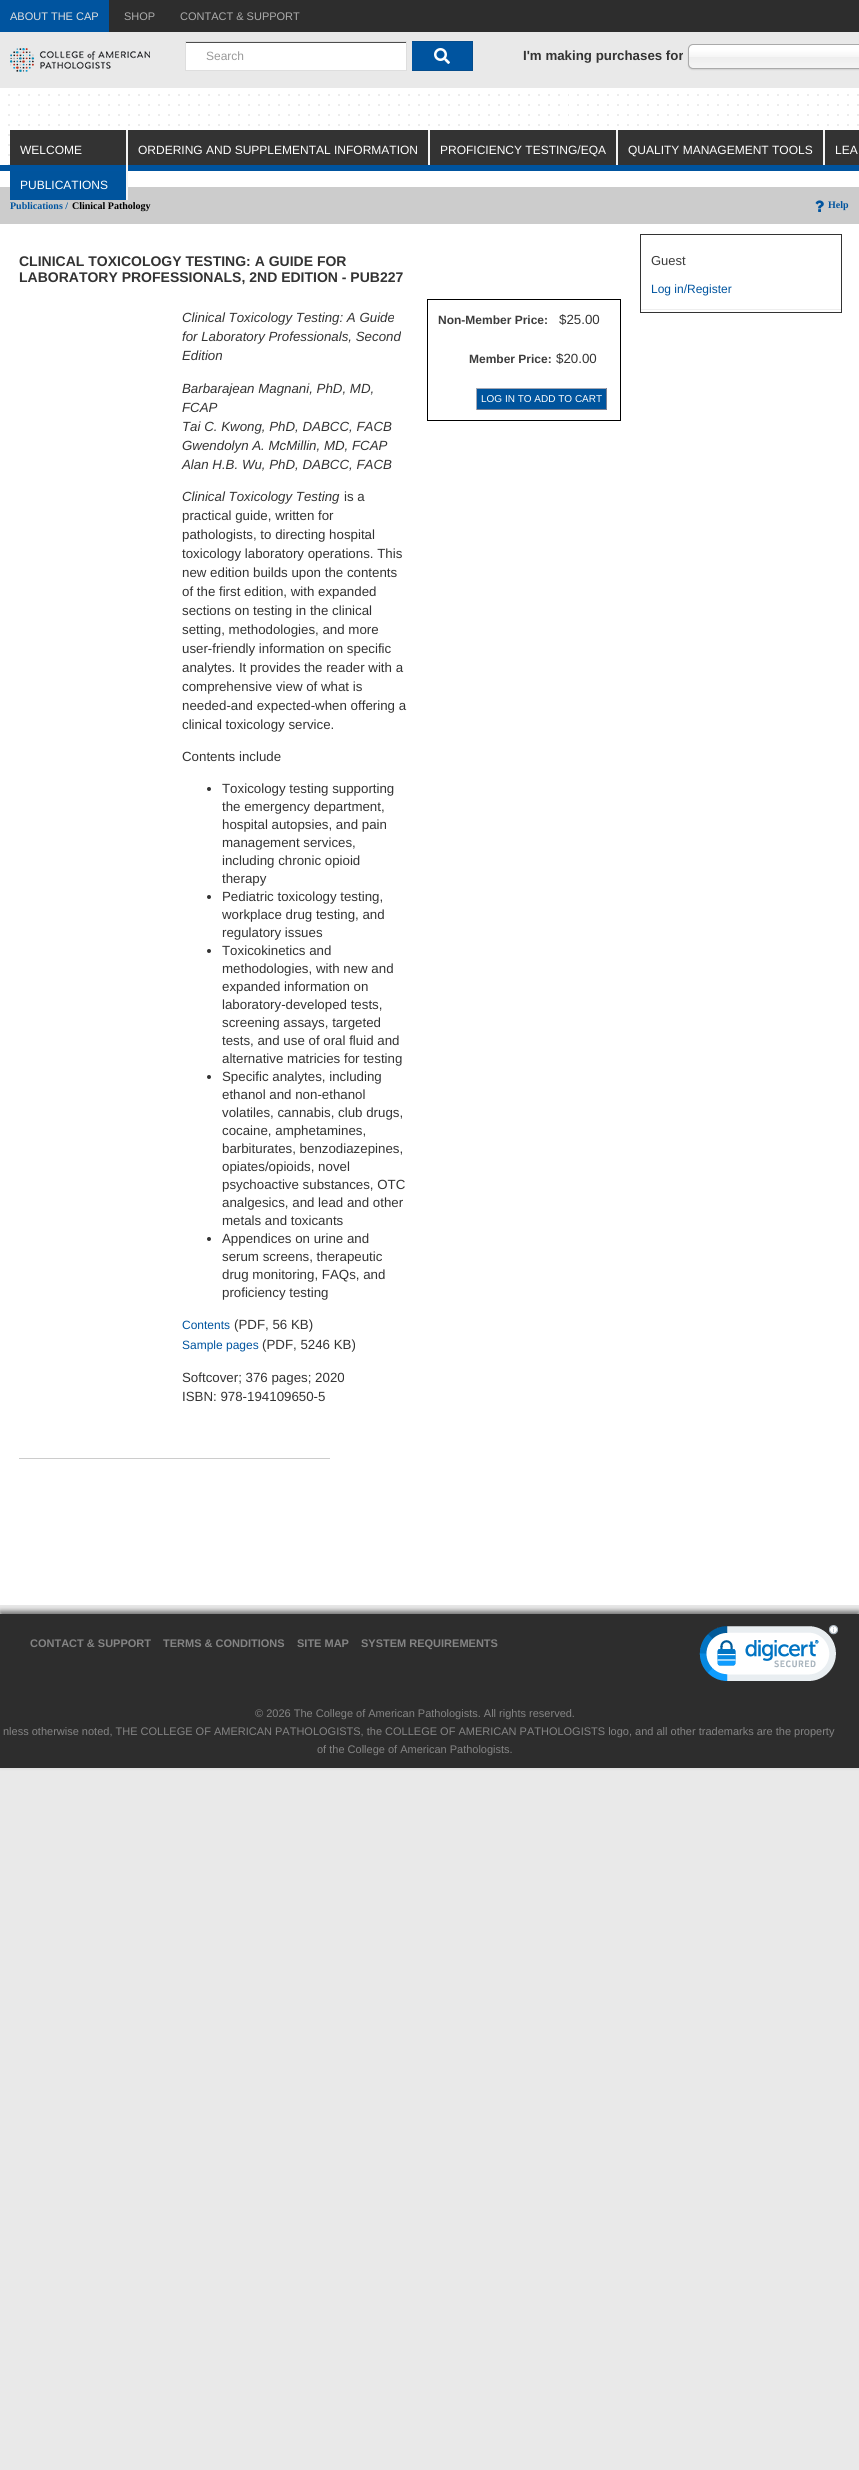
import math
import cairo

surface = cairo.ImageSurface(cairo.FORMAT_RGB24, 859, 2470)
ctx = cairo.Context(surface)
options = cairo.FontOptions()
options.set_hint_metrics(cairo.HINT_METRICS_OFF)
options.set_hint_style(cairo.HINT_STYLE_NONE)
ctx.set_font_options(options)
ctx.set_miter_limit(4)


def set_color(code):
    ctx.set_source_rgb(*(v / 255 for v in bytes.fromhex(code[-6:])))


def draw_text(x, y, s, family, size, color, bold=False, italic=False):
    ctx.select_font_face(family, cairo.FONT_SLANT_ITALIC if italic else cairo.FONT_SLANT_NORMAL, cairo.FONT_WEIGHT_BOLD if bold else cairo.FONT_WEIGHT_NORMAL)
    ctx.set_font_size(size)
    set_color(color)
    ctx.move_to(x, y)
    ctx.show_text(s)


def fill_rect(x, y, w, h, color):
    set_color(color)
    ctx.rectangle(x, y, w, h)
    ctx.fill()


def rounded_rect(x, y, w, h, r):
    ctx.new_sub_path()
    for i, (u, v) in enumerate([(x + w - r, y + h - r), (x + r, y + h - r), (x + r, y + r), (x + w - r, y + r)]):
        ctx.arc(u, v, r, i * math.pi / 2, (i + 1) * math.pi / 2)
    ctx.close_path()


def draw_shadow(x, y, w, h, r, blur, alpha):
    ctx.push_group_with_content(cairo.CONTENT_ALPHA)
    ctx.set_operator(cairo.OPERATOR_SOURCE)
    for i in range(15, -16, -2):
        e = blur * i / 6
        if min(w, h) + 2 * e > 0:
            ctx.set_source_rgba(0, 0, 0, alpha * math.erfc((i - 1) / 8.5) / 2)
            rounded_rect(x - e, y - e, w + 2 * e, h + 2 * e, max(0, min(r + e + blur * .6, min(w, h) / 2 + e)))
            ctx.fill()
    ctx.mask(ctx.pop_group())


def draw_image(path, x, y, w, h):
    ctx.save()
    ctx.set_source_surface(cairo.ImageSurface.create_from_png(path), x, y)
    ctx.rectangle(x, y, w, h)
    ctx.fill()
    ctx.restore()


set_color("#e9e9e9")
ctx.paint()
fill_rect(109, 0, 750, 32, "#2d2d2d")
fill_rect(0, 0, 109, 32, "#00549f")
draw_text(10, 20, "ABOUT THE CAP", "Liberation Sans", 11, "#dfdfdf")
draw_text(124, 20, "SHOP", "Liberation Sans", 11, "#acacac")
draw_text(180, 20, "CONTACT & SUPPORT", "Liberation Sans", 11, "#acacac")
draw_image("assets/img1.png", 10, 48, 140, 24)
fill_rect(186, 43, 220, 27, "#ffffff")
fill_rect(186, 42, 220, 1, "#4d4d4d")
ctx.rectangle(185.5, 41.5, 221, 29)
set_color("#dedede")
ctx.set_line_width(1)
ctx.stroke()
draw_text(206, 60, "Search", "Liberation Sans", 12, "#999999")
fill_rect(412, 41, 61, 30, "#00549f")
set_color("#054d8d")
ctx.new_path()
ctx.move_to(412, 41)
ctx.line_to(473, 41)
ctx.line_to(472, 42)
ctx.line_to(412, 42)
ctx.close_path()
ctx.fill()
ctx.set_source_rgba(0.133, 0.141, 0.149, 0.15)
ctx.new_path()
ctx.move_to(473, 41)
ctx.line_to(473, 71)
ctx.line_to(472, 70)
ctx.line_to(472, 42)
ctx.close_path()
ctx.fill()
ctx.new_path()
ctx.move_to(473, 71)
ctx.line_to(412, 71)
ctx.line_to(412, 70)
ctx.line_to(472, 70)
ctx.close_path()
ctx.fill()
draw_image("assets/img2.png", 434, 48, 16, 16)
draw_text(523, 60, "I'm making purchases for", "Liberation Sans", 13.3, "#333333", bold=True)
set_color("#000000")
draw_shadow(688, 45, 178, 25, 5, 0.5, 0.1)
gradient = cairo.LinearGradient(834, 45, 834, 68)
gradient.add_color_stop_rgba(0.2, 1, 1, 1, 1)
gradient.add_color_stop_rgba(0.5, 0.965, 0.965, 0.965, 1)
gradient.add_color_stop_rgba(0.52, 0.933, 0.933, 0.933, 1)
gradient.add_color_stop_rgba(1, 0.957, 0.957, 0.957, 1)
ctx.set_source(gradient)
rounded_rect(689, 45, 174, 23, 4)
ctx.fill()
rounded_rect(688.5, 44.5, 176, 24, 4.5)
set_color("#aaaaaa")
ctx.stroke()
fill_rect(0, 88, 859, 1517, "#ffffff")
draw_image("assets/img3.png", 8, 94, 851, 71)
fill_rect(0, 165, 859, 6, "#00549f")
fill_rect(10, 130, 116, 35, "#333333")
fill_rect(0, 187, 859, 37, "#cccccc")
fill_rect(126, 130, 2, 70, "#f5f5f5")
draw_text(20, 154, "WELCOME", "Liberation Sans", 12, "#ffffff")
fill_rect(128, 130, 300, 35, "#333333")
fill_rect(428, 130, 2, 35, "#f5f5f5")
draw_text(138, 154, "ORDERING AND SUPPLEMENTAL INFORMATION", "Liberation Sans", 12, "#ffffff")
fill_rect(430, 130, 186, 35, "#333333")
fill_rect(616, 130, 2, 35, "#f5f5f5")
draw_text(440, 154, "PROFICIENCY TESTING/EQA", "Liberation Sans", 12, "#ffffff")
fill_rect(618, 130, 205, 35, "#333333")
fill_rect(823, 130, 2, 35, "#f5f5f5")
draw_text(628, 154, "QUALITY MANAGEMENT TOOLS", "Liberation Sans", 12, "#ffffff")
fill_rect(825, 130, 34, 35, "#333333")
draw_text(835, 154, "LEA", "Liberation Sans", 12, "#ffffff")
fill_rect(10, 171, 116, 29, "#00549d")
draw_text(20, 189, "PUBLICATIONS", "Liberation Sans", 12, "#ffffff")
draw_text(10, 209, "Publications /", "Liberation Serif", 10, "#00549f", bold=True)
draw_text(72, 209, "Clinical Pathology", "Liberation Serif", 10, "#000000", bold=True)
draw_image("assets/img4.png", 815, 200, 9, 12)
draw_text(828, 208, "Help", "Liberation Serif", 10, "#00549f", bold=True)
draw_text(19, 266, "CLINICAL TOXICOLOGY TESTING: A GUIDE FOR", "Liberation Sans", 14, "#333333", bold=True)
draw_text(19, 282, "LABORATORY PROFESSIONALS, 2ND EDITION - PUB227", "Liberation Sans", 14, "#333333", bold=True)
draw_text(182, 322, "Clinical Toxicology Testing: A Guide", "Liberation Sans", 13.3, "#333333", italic=True)
draw_text(182, 341, "for Laboratory Professionals, Second", "Liberation Sans", 13.3, "#333333", italic=True)
draw_text(182, 360, "Edition", "Liberation Sans", 13.3, "#333333", italic=True)
draw_text(182, 393, "Barbarajean Magnani, PhD, MD,", "Liberation Sans", 13.3, "#333333", italic=True)
draw_text(182, 412, "FCAP", "Liberation Sans", 13.3, "#333333", italic=True)
draw_text(182, 431, "Tai C. Kwong, PhD, DABCC, FACB", "Liberation Sans", 13.3, "#333333", italic=True)
draw_text(182, 450, "Gwendolyn A. McMillin, MD, FCAP", "Liberation Sans", 13.3, "#333333", italic=True)
draw_text(182, 469, "Alan H.B. Wu, PhD, DABCC, FACB", "Liberation Sans", 13.3, "#333333", italic=True)
draw_text(182, 501, "Clinical Toxicology Testing", "Liberation Sans", 13.3, "#333333", italic=True)
draw_text(344, 501, "is a", "Liberation Sans", 13.3, "#333333")
draw_text(182, 520, "practical guide, written for", "Liberation Sans", 13.3, "#333333")
draw_text(182, 539, "pathologists, to directing hospital", "Liberation Sans", 13.3, "#333333")
draw_text(182, 558, "toxicology laboratory operations. This", "Liberation Sans", 13.3, "#333333")
draw_text(182, 577, "new edition builds upon the contents", "Liberation Sans", 13.3, "#333333")
draw_text(182, 596, "of the first edition, with expanded", "Liberation Sans", 13.3, "#333333")
draw_text(182, 615, "sections on testing in the clinical", "Liberation Sans", 13.3, "#333333")
draw_text(182, 634, "setting, methodologies, and more", "Liberation Sans", 13.3, "#333333")
draw_text(182, 653, "user‐friendly information on specific", "Liberation Sans", 13.3, "#333333")
draw_text(182, 672, "analytes. It provides the reader with a", "Liberation Sans", 13.3, "#333333")
draw_text(182, 691, "comprehensive view of what is", "Liberation Sans", 13.3, "#333333")
draw_text(182, 710, "needed‐and expected‐when offering a", "Liberation Sans", 13.3, "#333333")
draw_text(182, 729, "clinical toxicology service.", "Liberation Sans", 13.3, "#333333")
draw_text(182, 761, "Contents include", "Liberation Sans", 13.3, "#333333")
ctx.new_path()
ctx.arc(209, 789, 2, 0, 2 * math.pi)
ctx.fill()
draw_text(222, 793, "Toxicology testing supporting", "Liberation Sans", 13.3, "#333333")
draw_text(222, 811, "the emergency department,", "Liberation Sans", 13.3, "#333333")
draw_text(222, 829, "hospital autopsies, and pain", "Liberation Sans", 13.3, "#333333")
draw_text(222, 847, "management services,", "Liberation Sans", 13.3, "#333333")
draw_text(222, 865, "including chronic opioid", "Liberation Sans", 13.3, "#333333")
draw_text(222, 883, "therapy", "Liberation Sans", 13.3, "#333333")
ctx.new_path()
ctx.arc(209, 897, 2, 0, 2 * math.pi)
ctx.fill()
draw_text(222, 901, "Pediatric toxicology testing,", "Liberation Sans", 13.3, "#333333")
draw_text(222, 919, "workplace drug testing, and", "Liberation Sans", 13.3, "#333333")
draw_text(222, 937, "regulatory issues", "Liberation Sans", 13.3, "#333333")
ctx.new_path()
ctx.arc(209, 951, 2, 0, 2 * math.pi)
ctx.fill()
draw_text(222, 955, "Toxicokinetics and", "Liberation Sans", 13.3, "#333333")
draw_text(222, 973, "methodologies, with new and", "Liberation Sans", 13.3, "#333333")
draw_text(222, 991, "expanded information on", "Liberation Sans", 13.3, "#333333")
draw_text(222, 1009, "laboratory-developed tests,", "Liberation Sans", 13.3, "#333333")
draw_text(222, 1027, "screening assays, targeted", "Liberation Sans", 13.3, "#333333")
draw_text(222, 1045, "tests, and use of oral fluid and", "Liberation Sans", 13.3, "#333333")
draw_text(222, 1063, "alternative matricies for testing", "Liberation Sans", 13.3, "#333333")
ctx.new_path()
ctx.arc(209, 1077, 2, 0, 2 * math.pi)
ctx.fill()
draw_text(222, 1081, "Specific analytes, including", "Liberation Sans", 13.3, "#333333")
draw_text(222, 1099, "ethanol and non-ethanol", "Liberation Sans", 13.3, "#333333")
draw_text(222, 1117, "volatiles, cannabis, club drugs,", "Liberation Sans", 13.3, "#333333")
draw_text(222, 1135, "cocaine, amphetamines,", "Liberation Sans", 13.3, "#333333")
draw_text(222, 1153, "barbiturates, benzodiazepines,", "Liberation Sans", 13.3, "#333333")
draw_text(222, 1171, "opiates/opioids, novel", "Liberation Sans", 13.3, "#333333")
draw_text(222, 1189, "psychoactive substances, OTC", "Liberation Sans", 13.3, "#333333")
draw_text(222, 1207, "analgesics, and lead and other", "Liberation Sans", 13.3, "#333333")
draw_text(222, 1225, "metals and toxicants", "Liberation Sans", 13.3, "#333333")
ctx.new_path()
ctx.arc(209, 1239, 2, 0, 2 * math.pi)
ctx.fill()
draw_text(222, 1243, "Appendices on urine and", "Liberation Sans", 13.3, "#333333")
draw_text(222, 1261, "serum screens, therapeutic", "Liberation Sans", 13.3, "#333333")
draw_text(222, 1279, "drug monitoring, FAQs, and", "Liberation Sans", 13.3, "#333333")
draw_text(222, 1297, "proficiency testing", "Liberation Sans", 13.3, "#333333")
draw_text(182, 1329, "Contents", "Liberation Sans", 12, "#00549f")
draw_text(234, 1329, "(PDF, 56 KB)", "Liberation Sans", 13.3, "#333333")
draw_text(182, 1349, "Sample pages", "Liberation Sans", 12, "#00549f")
draw_text(262, 1349, "(PDF, 5246 KB)", "Liberation Sans", 13.3, "#333333")
draw_text(182, 1382, "Softcover; 376 pages; 2020", "Liberation Sans", 13.3, "#333333")
draw_text(182, 1401, "ISBN: 978-194109650-5", "Liberation Sans", 13.3, "#333333")
fill_rect(19, 1458, 311, 1, "#cccccc")
ctx.rectangle(427.5, 299.5, 193, 121)
set_color("#000000")
ctx.stroke()
draw_text(438, 324, "Non-Member Price:", "Liberation Sans", 12, "#3c3c3c", bold=True)
draw_text(559, 324, "$25.00", "Liberation Sans", 13.3, "#333333")
draw_text(469, 363, "Member Price:", "Liberation Sans", 12, "#3c3c3c", bold=True)
draw_text(556, 363, "$20.00", "Liberation Sans", 13.3, "#333333")
fill_rect(477, 389, 129, 20, "#00549d")
fill_rect(476, 388, 131, 1, "#a5a9b6")
fill_rect(606, 388, 1, 22, "#7b8194")
fill_rect(476, 409, 131, 1, "#7b8194")
fill_rect(476, 388, 1, 22, "#a5a9b6")
draw_text(481, 402, "LOG IN TO ADD TO CART", "Liberation Sans", 10, "#ffffff")
ctx.rectangle(640.5, 234.5, 201, 78)
set_color("#333333")
ctx.stroke()
draw_text(651, 265, "Guest", "Liberation Sans", 13, "#3c3c3c")
draw_text(651, 293, "Log in/Register", "Liberation Sans", 12, "#00549f")
fill_rect(641, 309, 200, 1, "#eeeeee")
set_color("#000000")
draw_shadow(0, 1611, 859, 154, 0, 2.5, 0.5)
fill_rect(0, 1614, 859, 154, "#2d2d2d")
draw_text(30, 1647, "CONTACT & SUPPORT", "Liberation Sans", 11, "#848484", bold=True)
draw_text(163, 1647, "TERMS & CONDITIONS", "Liberation Sans", 11, "#848484", bold=True)
draw_text(297, 1647, "SITE MAP", "Liberation Sans", 11, "#848484", bold=True)
draw_text(361, 1647, "SYSTEM REQUIREMENTS", "Liberation Sans", 11, "#848484", bold=True)
draw_image("assets/img5.png", 699, 1625, 139, 56)
draw_text(255, 1717, "© 2026 The College of American Pathologists. All rights reserved.", "Liberation Sans", 11, "#848484")
draw_text(3, 1735, "nless otherwise noted, THE COLLEGE OF AMERICAN PATHOLOGISTS, the COLLEGE OF AMERICAN PATHOLOGISTS logo, and all other trademarks are the property", "Liberation Sans", 11, "#848484")
draw_text(317, 1753, "of the College of American Pathologists.", "Liberation Sans", 11, "#848484")
surface.write_to_png("output.png")
